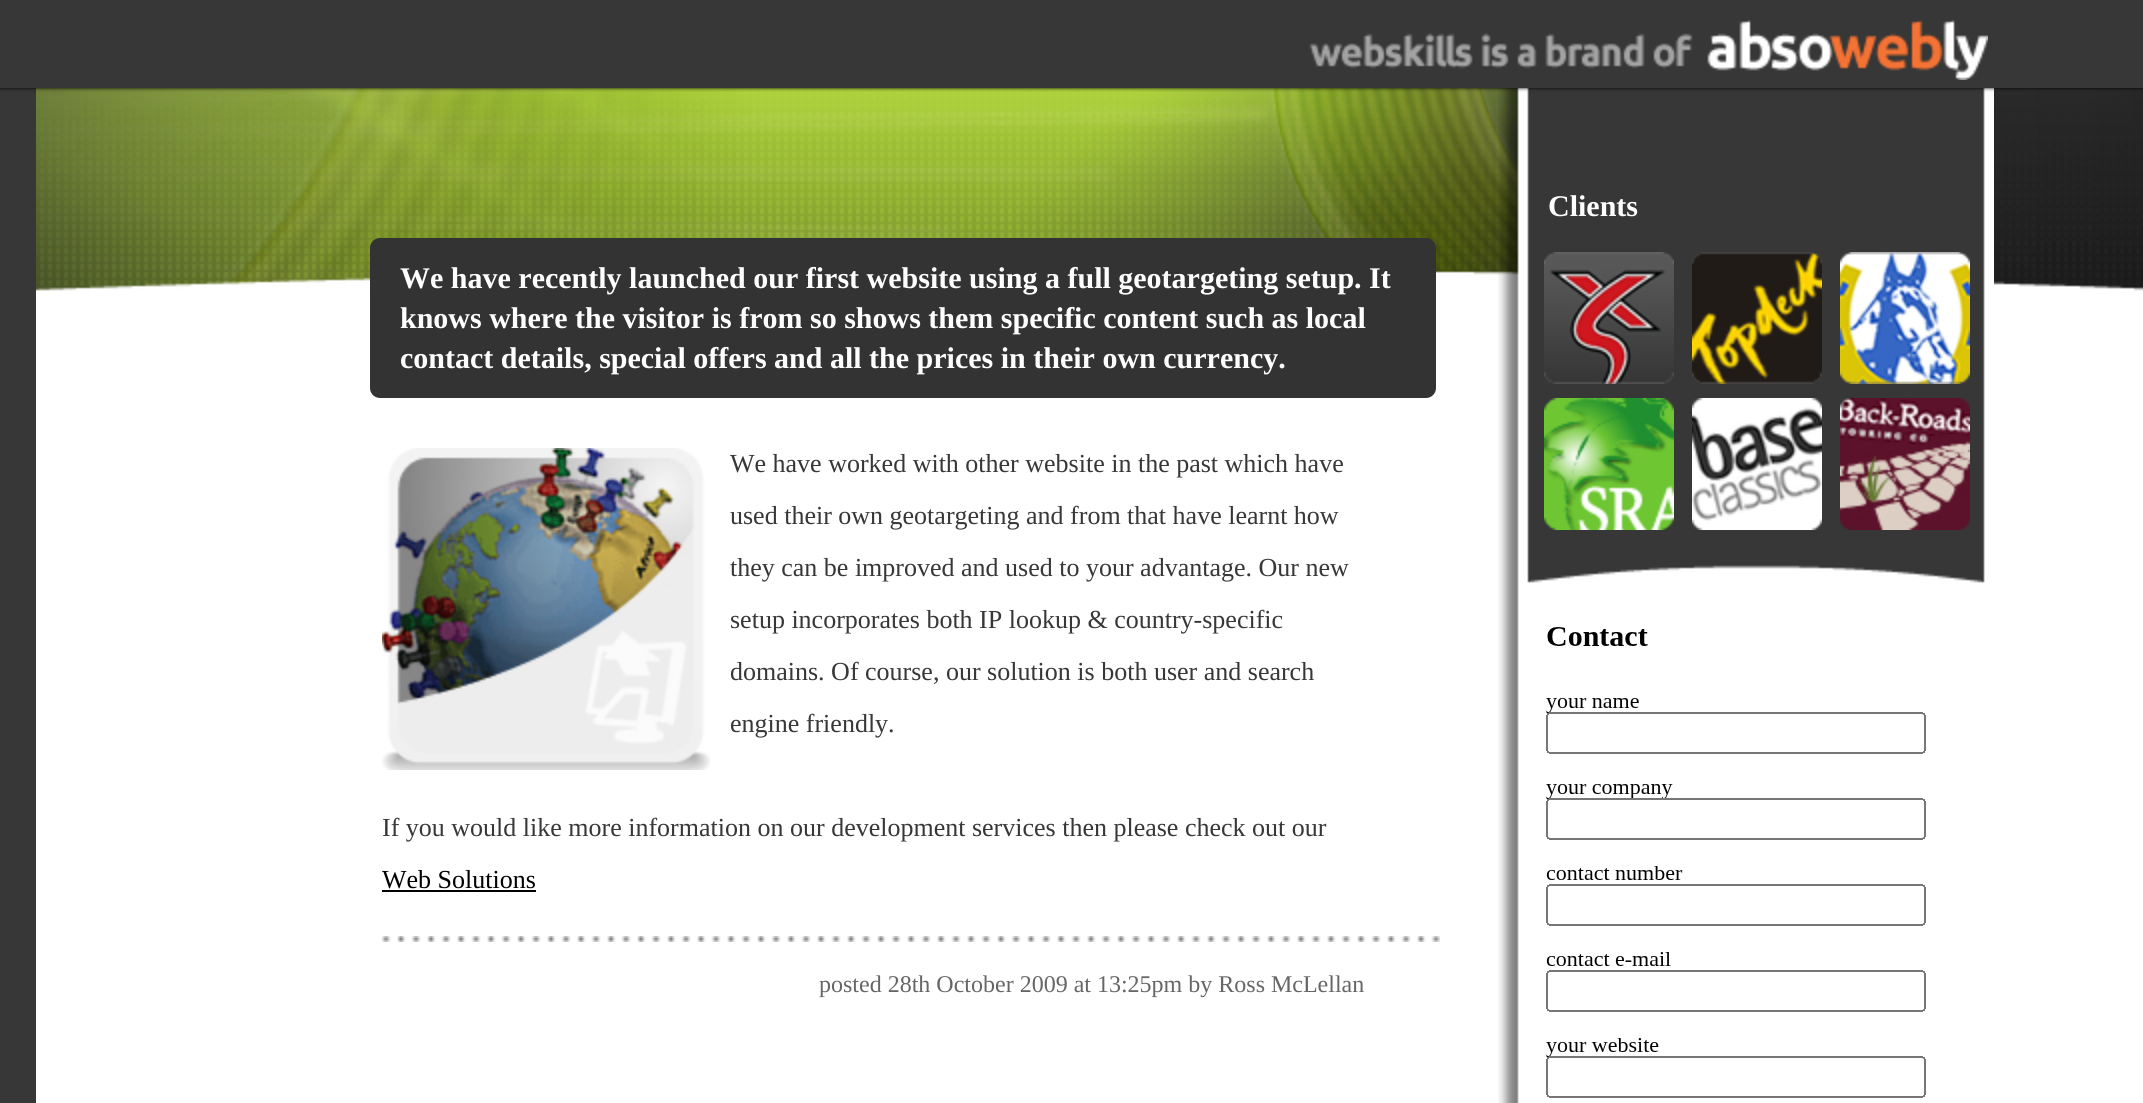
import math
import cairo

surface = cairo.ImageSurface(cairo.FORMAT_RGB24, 2143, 1103)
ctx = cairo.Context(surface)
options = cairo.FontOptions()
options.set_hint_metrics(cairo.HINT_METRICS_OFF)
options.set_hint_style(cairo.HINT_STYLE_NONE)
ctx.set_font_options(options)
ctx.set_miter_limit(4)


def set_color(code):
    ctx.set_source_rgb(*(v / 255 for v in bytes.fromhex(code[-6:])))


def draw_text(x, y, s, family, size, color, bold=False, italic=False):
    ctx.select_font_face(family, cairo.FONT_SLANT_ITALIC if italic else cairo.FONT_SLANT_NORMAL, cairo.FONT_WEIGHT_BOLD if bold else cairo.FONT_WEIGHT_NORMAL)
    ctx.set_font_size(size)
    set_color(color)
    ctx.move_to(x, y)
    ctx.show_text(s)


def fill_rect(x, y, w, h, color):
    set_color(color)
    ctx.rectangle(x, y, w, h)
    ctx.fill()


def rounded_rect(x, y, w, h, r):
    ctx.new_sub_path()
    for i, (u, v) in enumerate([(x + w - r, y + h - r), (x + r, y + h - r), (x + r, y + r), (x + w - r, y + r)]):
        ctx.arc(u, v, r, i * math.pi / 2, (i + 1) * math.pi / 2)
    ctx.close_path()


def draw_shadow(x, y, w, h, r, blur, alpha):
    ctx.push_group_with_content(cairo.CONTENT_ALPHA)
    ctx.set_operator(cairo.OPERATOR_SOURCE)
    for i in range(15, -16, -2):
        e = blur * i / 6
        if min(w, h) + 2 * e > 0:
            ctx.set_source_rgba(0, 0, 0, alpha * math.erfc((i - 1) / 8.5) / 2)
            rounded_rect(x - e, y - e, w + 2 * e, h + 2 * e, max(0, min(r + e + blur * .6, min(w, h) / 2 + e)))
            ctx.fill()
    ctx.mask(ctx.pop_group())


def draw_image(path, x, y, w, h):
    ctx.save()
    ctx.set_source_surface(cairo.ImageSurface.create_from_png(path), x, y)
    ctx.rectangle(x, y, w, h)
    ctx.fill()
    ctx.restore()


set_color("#ffffff")
ctx.paint()
fill_rect(0, 88, 36, 1015, "#373737")
draw_image("assets/img2.png", 36, 88, 2107, 205)
draw_image("assets/img3.png", 1498, 88, 496, 1015)
set_color("#000000")
draw_shadow(0, 0, 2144, 88, 0, 2, 1)
fill_rect(0, 0, 2143, 88, "#373737")
draw_image("assets/img1.png", 1309, 20, 679, 60)
draw_text(1548, 216, "Clients", "Liberation Serif", 30, "#ffffff", bold=True)
draw_image("assets/img4.png", 1544, 252, 130, 132)
draw_image("assets/img5.png", 1692, 252, 130, 132)
draw_image("assets/img6.png", 1840, 252, 130, 132)
draw_image("assets/img7.png", 1544, 398, 130, 132)
draw_image("assets/img8.png", 1692, 398, 130, 132)
draw_image("assets/img9.png", 1840, 398, 130, 132)
draw_image("assets/img10.png", 1546, 627, 380, 471)
set_color("#333333")
rounded_rect(370, 238, 1066, 160, 10)
ctx.fill()
draw_text(400, 288, "We have recently launched our first website using a full geotargeting setup. It", "Liberation Serif", 30, "#ffffff", bold=True)
draw_text(400, 328, "knows where the visitor is from so shows them specific content such as local", "Liberation Serif", 30, "#ffffff", bold=True)
draw_text(400, 368, "contact details, special offers and all the prices in their own currency.", "Liberation Serif", 30, "#ffffff", bold=True)
draw_image("assets/img11.png", 382, 448, 328, 322)
draw_text(730, 472, "We have worked with other website in the past which have", "Liberation Serif", 26, "#373737")
draw_text(730, 524, "used their own geotargeting and from that have learnt how", "Liberation Serif", 26, "#373737")
draw_text(730, 576, "they can be improved and used to your advantage. Our new", "Liberation Serif", 26, "#373737")
draw_text(730, 628, "setup incorporates both IP lookup & country-specific", "Liberation Serif", 26, "#373737")
draw_text(730, 680, "domains. Of course, our solution is both user and search", "Liberation Serif", 26, "#373737")
draw_text(730, 732, "engine friendly.", "Liberation Serif", 26, "#373737")
draw_text(382, 836, "If you would like more information on our development services then please check out our", "Liberation Serif", 26, "#373737")
draw_text(382, 888, "Web Solutions", "Liberation Serif", 26, "#000000")
fill_rect(382, 890, 154, 2, "#000000")
draw_image("assets/img12.png", 382, 936, 1058, 6)
draw_text(819, 992, "posted 28th October 2009 at 13:25pm by Ross McLellan", "Liberation Serif", 24, "#666666")
surface.write_to_png("output.png")
